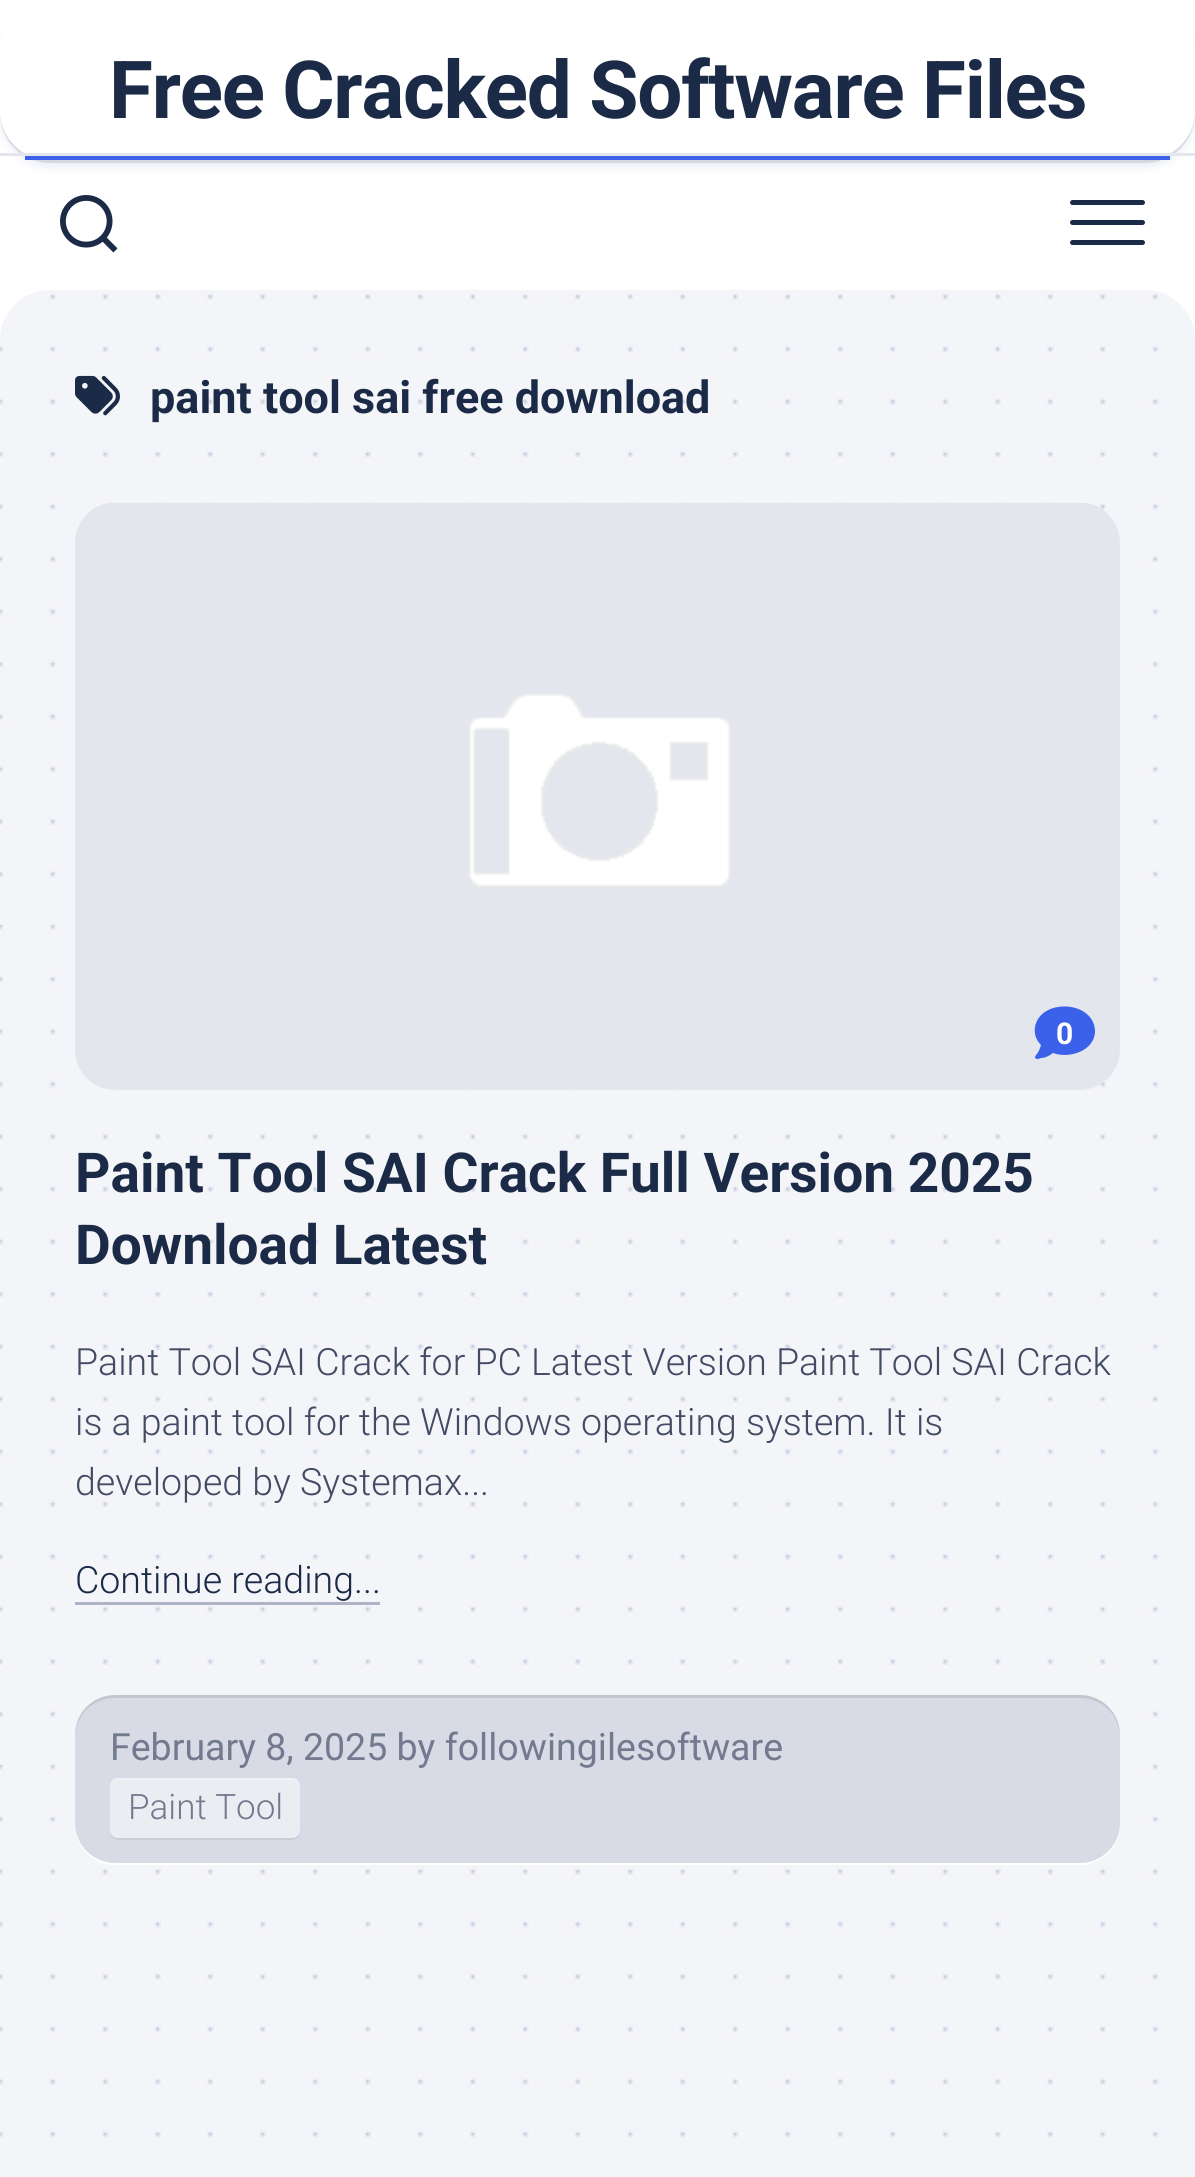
import math
import cairo

surface = cairo.ImageSurface(cairo.FORMAT_RGB24, 1195, 2177)
ctx = cairo.Context(surface)
options = cairo.FontOptions()
options.set_hint_metrics(cairo.HINT_METRICS_OFF)
options.set_hint_style(cairo.HINT_STYLE_NONE)
ctx.set_font_options(options)
ctx.set_miter_limit(4)


def set_color(code):
    ctx.set_source_rgb(*(v / 255 for v in bytes.fromhex(code[-6:])))


def draw_text(x, y, s, family, size, color, bold=False, italic=False):
    ctx.select_font_face(family, cairo.FONT_SLANT_ITALIC if italic else cairo.FONT_SLANT_NORMAL, cairo.FONT_WEIGHT_BOLD if bold else cairo.FONT_WEIGHT_NORMAL)
    ctx.set_font_size(size)
    set_color(color)
    ctx.move_to(x, y)
    ctx.show_text(s)


def draw_spaced(x, y, s, letter, word):
    ctx.move_to(x, y)
    for ch in s:
        ctx.show_text(ch)
        ctx.rel_move_to(letter + word * (ch == ' '), 0)


def fill_rect(x, y, w, h, color):
    set_color(color)
    ctx.rectangle(x, y, w, h)
    ctx.fill()


def rounded_rect(x, y, w, h, r):
    ctx.new_sub_path()
    for i, (u, v) in enumerate([(x + w - r, y + h - r), (x + r, y + h - r), (x + r, y + r), (x + w - r, y + r)]):
        ctx.arc(u, v, r, i * math.pi / 2, (i + 1) * math.pi / 2)
    ctx.close_path()


def draw_shadow(x, y, w, h, r, blur, alpha):
    ctx.push_group_with_content(cairo.CONTENT_ALPHA)
    ctx.set_operator(cairo.OPERATOR_SOURCE)
    for i in range(15, -16, -2):
        e = blur * i / 6
        if min(w, h) + 2 * e > 0:
            ctx.set_source_rgba(0, 0, 0, alpha * math.erfc((i - 1) / 8.5) / 2)
            rounded_rect(x - e, y - e, w + 2 * e, h + 2 * e, max(0, min(r + e + blur * .6, min(w, h) / 2 + e)))
            ctx.fill()
    ctx.mask(ctx.pop_group())


def draw_image(path, x, y, w, h):
    ctx.save()
    ctx.set_source_surface(cairo.ImageSurface.create_from_png(path), x, y)
    ctx.rectangle(x, y, w, h)
    ctx.fill()
    ctx.restore()


set_color("#ffffff")
ctx.paint()
ctx.save()
ctx.set_fill_rule(cairo.FILL_RULE_EVEN_ODD)
ctx.new_path()
ctx.move_to(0, 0)
ctx.line_to(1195, 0)
ctx.line_to(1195, 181)
ctx.line_to(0, 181)
ctx.close_path()
ctx.move_to(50, 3)
ctx.line_to(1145, 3)
ctx.curve_to(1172.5, 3, 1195, 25.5, 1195, 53)
ctx.line_to(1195, 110)
ctx.curve_to(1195, 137.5, 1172.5, 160, 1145, 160)
ctx.line_to(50, 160)
ctx.curve_to(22.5, 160, 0, 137.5, 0, 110)
ctx.line_to(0, 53)
ctx.curve_to(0, 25.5, 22.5, 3, 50, 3)
ctx.close_path()
ctx.clip()
set_color("#c1cbe6")
draw_shadow(0, 10, 1195, 158, 50, 4, 0.3)
ctx.restore()
ctx.set_source_rgba(0, 0, 0, 0.1)
ctx.new_path()
ctx.move_to(0, 110)
ctx.line_to(0, 113)
ctx.curve_to(0, 141, 22, 163, 50, 163)
ctx.line_to(1145, 163)
ctx.curve_to(1173, 163, 1195, 141, 1195, 113)
ctx.line_to(1195, 110)
ctx.curve_to(1195, 138, 1173, 160, 1145, 160)
ctx.line_to(50, 160)
ctx.curve_to(22, 160, 0, 138, 0, 110)
ctx.close_path()
ctx.fill()
ctx.set_source_rgba(1, 1, 1, 0.9)
rounded_rect(0, 3, 1195, 157, 50)
ctx.fill()
fill_rect(25, 156, 1145, 4, "#3b61eb")
fill_rect(0, 153, 1195, 3, "#e4e6ed")
ctx.select_font_face("Roboto", cairo.FONT_SLANT_NORMAL, cairo.FONT_WEIGHT_BOLD)
ctx.set_font_size(80)
set_color("#1b2b47")
draw_spaced(109, 118, "Free Cracked Software Files", -1.25, 0)
draw_image("assets/img1.png", 60, 195, 58, 58)
rounded_rect(1070, 200, 75, 5, 2.5)
ctx.fill()
rounded_rect(1070, 220, 75, 5, 2.5)
ctx.fill()
rounded_rect(1070, 240, 75, 5, 2.5)
ctx.fill()
set_color("#f4f5f8")
rounded_rect(0, 290, 1195, 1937, 50)
ctx.fill()
draw_image("assets/img2.png", 0, 294, 1159, 1844)
draw_image("assets/img3.png", 75, 375, 45, 41)
draw_text(150, 413, "paint tool sai free download", "Roboto", 45, "#1b2b47", bold=True)
draw_image("assets/img4.png", 75, 502, 1045, 588)
set_color("#3b61eb")
ctx.new_path()
ctx.move_to(1095, 1031)
ctx.curve_to(1095, 1051, 1069, 1059, 1053, 1053)
ctx.curve_to(1049, 1056, 1045, 1058, 1041, 1058)
ctx.curve_to(1039, 1059, 1035, 1060, 1035, 1057)
ctx.line_to(1036, 1055)
ctx.curve_to(1038, 1053, 1040, 1049, 1041, 1045)
ctx.curve_to(1036, 1040, 1034, 1034, 1035, 1027)
ctx.curve_to(1040, 998, 1094, 1000, 1095, 1031)
ctx.close_path()
ctx.fill()
draw_text(1056, 1044, "0", "Roboto", 30, "#ffffff", bold=True)
draw_text(75, 1192, "Paint Tool SAI Crack Full Version 2025", "Roboto", 55, "#1b2b47", bold=True)
draw_text(75, 1264, "Download Latest", "Roboto", 55, "#1b2b47", bold=True)
draw_text(75, 1375, "Paint Tool SAI Crack for PC Latest Version Paint Tool SAI Crack", "Roboto Light", 37.5, "#434b64")
draw_text(75, 1435, "is a paint tool for the Windows operating system. It is", "Roboto Light", 37.5, "#434b64")
draw_text(75, 1495, "developed by Systemax...", "Roboto Light", 37.5, "#434b64")
draw_text(75, 1593, "Continue reading...", "Roboto Light", 37.5, "#1b2b47")
fill_rect(75, 1602, 305, 3, "#aeb3c7")
set_color("#ffffff")
ctx.new_path()
ctx.move_to(75, 1822)
ctx.line_to(75, 1825)
ctx.curve_to(75, 1847, 93, 1865, 115, 1865)
ctx.line_to(1080, 1865)
ctx.curve_to(1102, 1865, 1120, 1847, 1120, 1825)
ctx.line_to(1120, 1822)
ctx.curve_to(1120, 1845, 1102, 1862, 1080, 1862)
ctx.line_to(115, 1862)
ctx.curve_to(93, 1862, 75, 1845, 75, 1822)
ctx.close_path()
ctx.fill()
set_color("#d8dbe5")
rounded_rect(75, 1695, 1045, 168, 40)
ctx.fill()
ctx.set_source_rgba(0, 0, 0, 0.1)
ctx.new_path()
ctx.move_to(115, 1698)
ctx.line_to(1080, 1698)
ctx.curve_to(1102, 1698, 1120, 1715, 1120, 1738)
ctx.line_to(1120, 1735)
ctx.curve_to(1120, 1713, 1102, 1695, 1080, 1695)
ctx.line_to(115, 1695)
ctx.curve_to(93, 1695, 75, 1713, 75, 1735)
ctx.line_to(75, 1738)
ctx.curve_to(75, 1715, 93, 1698, 115, 1698)
ctx.close_path()
ctx.fill()
draw_text(110, 1760, "February 8, 2025 by followingilesoftware", "Roboto", 37.5, "#73798e")
set_color("#cbced7")
ctx.new_path()
ctx.move_to(110, 1830)
ctx.line_to(110, 1832)
ctx.curve_to(110, 1836, 114, 1840, 118, 1840)
ctx.line_to(292, 1840)
ctx.curve_to(296, 1840, 300, 1836, 300, 1832)
ctx.line_to(300, 1830)
ctx.curve_to(300, 1834, 297, 1838, 292, 1838)
ctx.line_to(118, 1838)
ctx.curve_to(113, 1838, 110, 1834, 110, 1830)
ctx.close_path()
ctx.fill()
ctx.set_source_rgba(1, 1, 1, 0.5)
rounded_rect(110, 1778, 190, 60, 8)
ctx.fill()
ctx.set_source_rgba(1, 1, 1, 0.2)
ctx.new_path()
ctx.move_to(118, 1780)
ctx.line_to(292, 1780)
ctx.curve_to(297, 1780, 300, 1783, 300, 1788)
ctx.line_to(300, 1786)
ctx.curve_to(300, 1782, 296, 1778, 292, 1778)
ctx.line_to(118, 1778)
ctx.curve_to(114, 1778, 110, 1782, 110, 1786)
ctx.line_to(110, 1788)
ctx.curve_to(110, 1783, 113, 1780, 118, 1780)
ctx.close_path()
ctx.fill()
draw_text(128, 1819, "Paint Tool", "Roboto Light", 35, "#73798e")
surface.write_to_png("output.png")
